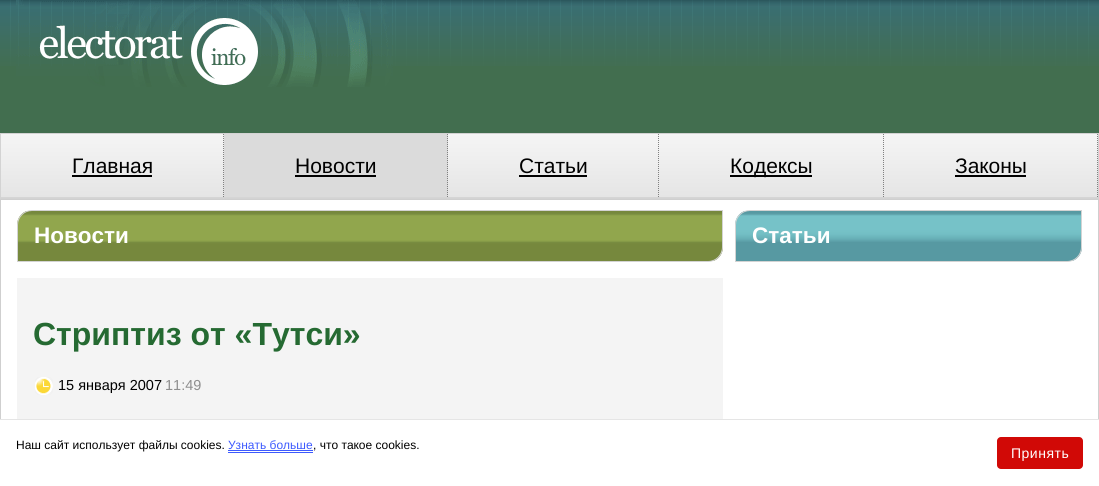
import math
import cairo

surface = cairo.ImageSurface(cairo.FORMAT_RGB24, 1099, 486)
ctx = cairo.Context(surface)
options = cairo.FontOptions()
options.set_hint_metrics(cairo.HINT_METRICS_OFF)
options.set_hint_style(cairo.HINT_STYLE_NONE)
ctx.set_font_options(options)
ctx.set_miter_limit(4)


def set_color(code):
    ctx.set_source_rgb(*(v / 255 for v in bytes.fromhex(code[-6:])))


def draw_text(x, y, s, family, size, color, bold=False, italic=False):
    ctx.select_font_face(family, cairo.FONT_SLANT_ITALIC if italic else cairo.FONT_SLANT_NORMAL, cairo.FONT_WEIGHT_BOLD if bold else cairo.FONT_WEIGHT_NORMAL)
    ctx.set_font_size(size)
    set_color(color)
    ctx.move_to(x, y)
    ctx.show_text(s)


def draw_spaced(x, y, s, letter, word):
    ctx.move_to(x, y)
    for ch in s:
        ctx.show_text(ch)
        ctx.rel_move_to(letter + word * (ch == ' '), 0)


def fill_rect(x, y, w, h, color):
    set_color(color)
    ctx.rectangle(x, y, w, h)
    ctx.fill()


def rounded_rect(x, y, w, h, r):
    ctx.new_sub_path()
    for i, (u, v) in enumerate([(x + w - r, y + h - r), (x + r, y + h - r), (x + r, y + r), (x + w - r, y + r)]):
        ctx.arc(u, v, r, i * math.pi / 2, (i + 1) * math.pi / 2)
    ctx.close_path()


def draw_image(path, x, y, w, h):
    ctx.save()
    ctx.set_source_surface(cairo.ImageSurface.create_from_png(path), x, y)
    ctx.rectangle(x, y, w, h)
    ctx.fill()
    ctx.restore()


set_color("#426e4f")
ctx.paint()
draw_image("assets/img1.png", 0, 0, 1099, 66)
draw_image("assets/img2.png", 16, 0, 377, 87)
ctx.rectangle(0.5, 133.5, 1098, 65)
set_color("#d3d3d3")
ctx.set_line_width(1)
ctx.stroke()
gradient = cairo.LinearGradient(112, 134, 112, 197)
gradient.add_color_stop_rgba(0, 0.961, 0.961, 0.961, 1)
gradient.add_color_stop_rgba(1, 0.898, 0.898, 0.898, 1)
ctx.set_source(gradient)
ctx.rectangle(1, 134, 223, 63)
ctx.fill()
ctx.new_path()
ctx.move_to(223.5, 134)
ctx.line_to(223.5, 198)
set_color("#808080")
ctx.set_dash([1, 1])
ctx.stroke()
fill_rect(1, 197, 1097, 1, "#d5d5d5")
draw_text(72, 173, "Главная", "Liberation Sans", 21, "#000000")
fill_rect(72, 175, 80, 2, "#000000")
fill_rect(224, 134, 224, 63, "#dbdbdb")
ctx.new_path()
ctx.move_to(447.5, 134)
ctx.line_to(447.5, 198)
set_color("#808080")
ctx.stroke()
draw_text(295, 173, "Новости", "Liberation Sans", 21, "#000000")
fill_rect(295, 175, 81, 2, "#000000")
gradient = cairo.LinearGradient(553, 134, 553, 197)
gradient.add_color_stop_rgba(0, 0.961, 0.961, 0.961, 1)
gradient.add_color_stop_rgba(1, 0.898, 0.898, 0.898, 1)
ctx.set_source(gradient)
ctx.rectangle(448, 134, 211, 63)
ctx.fill()
ctx.new_path()
ctx.move_to(658.5, 134)
ctx.line_to(658.5, 198)
set_color("#808080")
ctx.stroke()
draw_text(519, 173, "Статьи", "Liberation Sans", 21, "#000000")
fill_rect(519, 175, 68, 2, "#000000")
gradient = cairo.LinearGradient(771, 134, 771, 197)
gradient.add_color_stop_rgba(0, 0.961, 0.961, 0.961, 1)
gradient.add_color_stop_rgba(1, 0.898, 0.898, 0.898, 1)
ctx.set_source(gradient)
ctx.rectangle(659, 134, 225, 63)
ctx.fill()
ctx.new_path()
ctx.move_to(883.5, 134)
ctx.line_to(883.5, 198)
set_color("#808080")
ctx.stroke()
fill_rect(730, 175, 82, 2, "#000000")
draw_text(730, 173, "Кодексы", "Liberation Sans", 21, "#000000")
gradient = cairo.LinearGradient(991, 134, 991, 197)
gradient.add_color_stop_rgba(0, 0.961, 0.961, 0.961, 1)
gradient.add_color_stop_rgba(1, 0.898, 0.898, 0.898, 1)
ctx.set_source(gradient)
ctx.rectangle(884, 134, 214, 63)
ctx.fill()
ctx.new_path()
ctx.move_to(1097.5, 134)
ctx.line_to(1097.5, 198)
set_color("#808080")
ctx.stroke()
draw_text(955, 173, "Законы", "Liberation Sans", 21, "#000000")
fill_rect(955, 175, 71, 2, "#000000")
fill_rect(1, 200, 1097, 219, "#ffffff")
ctx.rectangle(0.5, 199.5, 1098, 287)
set_color("#cfcfcf")
ctx.set_dash([])
ctx.stroke()
ctx.save()
ctx.new_path()
ctx.move_to(32, 210)
ctx.line_to(723, 210)
ctx.line_to(723, 247)
ctx.curve_to(723, 255.5, 716.5, 262, 708, 262)
ctx.line_to(17, 262)
ctx.line_to(17, 225)
ctx.curve_to(17, 216.5, 23.5, 210, 32, 210)
ctx.close_path()
ctx.clip()
gradient = cairo.LinearGradient(370, 211, 370, 261)
gradient.add_color_stop_rgba(0, 0.463, 0.533, 0.239, 1)
gradient.add_color_stop_rgba(0.03, 0.463, 0.533, 0.239, 1)
gradient.add_color_stop_rgba(0.06, 0.471, 0.549, 0.251, 1)
gradient.add_color_stop_rgba(0.09, 0.549, 0.631, 0.29, 1)
gradient.add_color_stop_rgba(0.11, 0.569, 0.651, 0.302, 1)
gradient.add_color_stop_rgba(0.57, 0.569, 0.651, 0.302, 1)
gradient.add_color_stop_rgba(0.6, 0.549, 0.631, 0.29, 1)
gradient.add_color_stop_rgba(0.63, 0.471, 0.549, 0.251, 1)
gradient.add_color_stop_rgba(0.66, 0.463, 0.533, 0.239, 1)
gradient.add_color_stop_rgba(0.99, 0.463, 0.533, 0.239, 1)
ctx.set_source(gradient)
ctx.rectangle(17, 211, 706, 50)
ctx.fill()
ctx.restore()
ctx.new_path()
ctx.move_to(32, 210.5)
ctx.line_to(722.5, 210.5)
ctx.line_to(722.5, 247)
ctx.curve_to(722.5, 255, 716, 261.5, 708, 261.5)
ctx.line_to(17.5, 261.5)
ctx.line_to(17.5, 225)
ctx.curve_to(17.5, 217, 24, 210.5, 32, 210.5)
ctx.close_path()
set_color("#d3d3d3")
ctx.stroke()
draw_text(34, 243, "Новости", "Liberation Sans", 22.5, "#ffffff", bold=True)
fill_rect(17, 278, 706, 141, "#f4f4f4")
draw_text(33, 345, "Стриптиз от «Тутси»", "Liberation Sans", 32, "#256a32", bold=True)
draw_image("assets/img3.png", 35, 377, 18, 18)
draw_text(58, 390, "15 января 2007", "Liberation Sans", 14.5, "#000000")
draw_text(165, 390, "11:49", "Liberation Sans", 14.5, "#8e8e8e")
ctx.save()
ctx.new_path()
ctx.move_to(750, 210)
ctx.line_to(1082, 210)
ctx.line_to(1082, 247)
ctx.curve_to(1082, 255.5, 1075.5, 262, 1067, 262)
ctx.line_to(735, 262)
ctx.line_to(735, 225)
ctx.curve_to(735, 216.5, 741.5, 210, 750, 210)
ctx.close_path()
ctx.clip()
gradient = cairo.LinearGradient(909, 211, 909, 261)
gradient.add_color_stop_rgba(0, 0.341, 0.6, 0.635, 1)
gradient.add_color_stop_rgba(0.03, 0.341, 0.6, 0.635, 1)
gradient.add_color_stop_rgba(0.06, 0.357, 0.62, 0.651, 1)
gradient.add_color_stop_rgba(0.09, 0.435, 0.729, 0.757, 1)
gradient.add_color_stop_rgba(0.11, 0.463, 0.761, 0.784, 1)
gradient.add_color_stop_rgba(0.37, 0.463, 0.761, 0.784, 1)
gradient.add_color_stop_rgba(0.46, 0.451, 0.749, 0.769, 1)
gradient.add_color_stop_rgba(0.54, 0.412, 0.698, 0.725, 1)
gradient.add_color_stop_rgba(0.57, 0.396, 0.671, 0.702, 1)
gradient.add_color_stop_rgba(0.63, 0.341, 0.6, 0.635, 1)
gradient.add_color_stop_rgba(0.99, 0.341, 0.6, 0.635, 1)
ctx.set_source(gradient)
ctx.rectangle(735, 211, 347, 50)
ctx.fill()
ctx.restore()
ctx.new_path()
ctx.move_to(750, 210.5)
ctx.line_to(1081.5, 210.5)
ctx.line_to(1081.5, 247)
ctx.curve_to(1081.5, 255, 1075, 261.5, 1067, 261.5)
ctx.line_to(735.5, 261.5)
ctx.line_to(735.5, 225)
ctx.curve_to(735.5, 217, 742, 210.5, 750, 210.5)
ctx.close_path()
set_color("#d3d3d3")
ctx.stroke()
draw_text(752, 243, "Статьи", "Liberation Sans", 22.5, "#ffffff", bold=True)
fill_rect(0, 420, 1099, 66, "#ffffff")
fill_rect(0, 419, 1099, 1, "#e5e5e5")
draw_text(16, 449, "Наш сайт использует файлы cookies.", "Liberation Sans", 12, "#000000")
draw_text(228, 449, "Узнать больше", "Liberation Sans", 12, "#3d5afe")
fill_rect(228, 452, 85, 1, "#3d5afe")
fill_rect(228, 450, 85, 1, "#3d5afe")
draw_text(313, 449, ", что такое cookies.", "Liberation Sans", 12, "#000000")
set_color("#d10906")
rounded_rect(997, 437, 86, 32, 4)
ctx.fill()
ctx.set_font_size(14)
set_color("#ffffff")
draw_spaced(1011, 458, "Принять", 0.5, 0)
surface.write_to_png("output.png")
